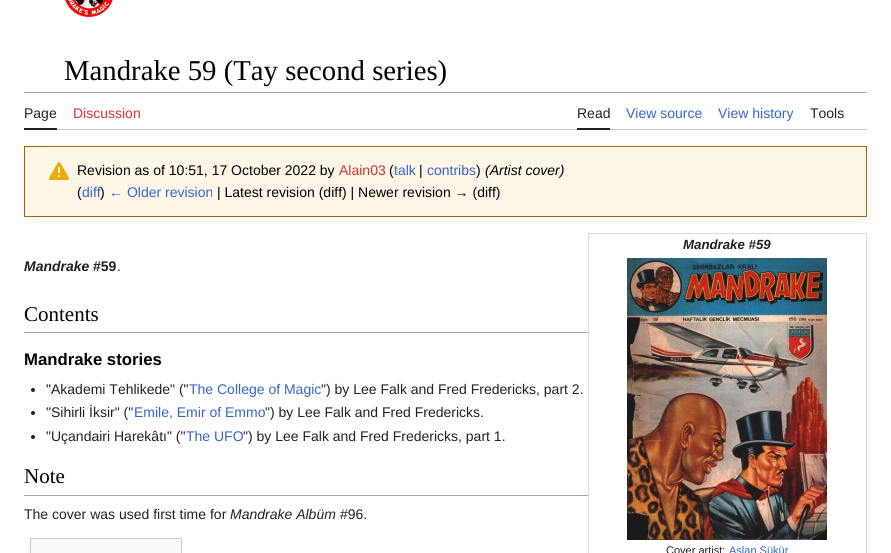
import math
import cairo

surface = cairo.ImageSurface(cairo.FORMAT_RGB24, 891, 553)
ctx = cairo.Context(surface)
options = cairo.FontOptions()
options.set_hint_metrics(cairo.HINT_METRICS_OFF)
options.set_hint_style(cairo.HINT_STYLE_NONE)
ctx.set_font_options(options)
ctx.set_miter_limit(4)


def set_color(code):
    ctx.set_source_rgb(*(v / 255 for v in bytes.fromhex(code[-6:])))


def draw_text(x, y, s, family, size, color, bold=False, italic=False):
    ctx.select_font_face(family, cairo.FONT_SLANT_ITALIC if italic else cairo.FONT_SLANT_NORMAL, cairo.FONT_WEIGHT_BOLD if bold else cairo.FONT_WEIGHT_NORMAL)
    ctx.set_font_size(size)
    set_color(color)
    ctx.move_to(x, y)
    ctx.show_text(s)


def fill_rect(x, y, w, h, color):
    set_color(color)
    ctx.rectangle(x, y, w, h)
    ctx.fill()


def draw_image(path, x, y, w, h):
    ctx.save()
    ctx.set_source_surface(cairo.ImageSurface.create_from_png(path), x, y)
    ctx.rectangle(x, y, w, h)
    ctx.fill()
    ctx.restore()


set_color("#ffffff")
ctx.paint()
draw_image("assets/img1.png", 65, 0, 48, 17)
draw_text(64, 80, "Mandrake 59 (Tay second series)", "Liberation Serif", 28.75, "#000000")
fill_rect(24, 92, 843, 1, "#a2a9b1")
fill_rect(57, 129, 810, 1, "#c8ccd1")
fill_rect(24, 128, 33, 2, "#202122")
draw_text(24, 118, "Page", "Liberation Sans", 14, "#202122")
draw_text(73, 118, "Discussion", "Liberation Sans", 14, "#d73333")
fill_rect(577, 128, 33, 2, "#202122")
draw_text(577, 118, "Read", "Liberation Sans", 14, "#202122")
draw_text(626, 118, "View source", "Liberation Sans", 14, "#3366cc")
draw_text(718, 118, "View history", "Liberation Sans", 14, "#3366cc")
draw_text(810, 118, "Tools", "Liberation Sans", 14, "#202122")
set_color("#fef6e7")
ctx.rectangle(24.5, 146.5, 842, 70)
ctx.fill_preserve()
set_color("#a66200")
ctx.set_line_width(1)
ctx.stroke()
draw_image("assets/img2.png", 49, 162, 20, 18)
draw_text(77, 175, "Revision as of 10:51, 17 October 2022 by", "Liberation Sans", 14, "#000000")
draw_text(339, 175, "Alain03", "Liberation Sans", 14, "#d73333")
draw_text(389, 175, "(", "Liberation Sans", 14, "#000000")
draw_text(394, 175, "talk", "Liberation Sans", 14, "#3366cc")
draw_text(419, 175, "|", "Liberation Sans", 14, "#000000")
draw_text(427, 175, "contribs", "Liberation Sans", 14, "#3366cc")
draw_text(476, 175, ")", "Liberation Sans", 14, "#000000")
draw_text(485, 175, "(Artist cover)", "Liberation Sans", 14, "#000000", italic=True)
draw_text(77, 197, "(", "Liberation Sans", 14, "#000000")
draw_text(82, 197, "diff", "Liberation Sans", 14, "#3366cc")
draw_text(100, 197, ")", "Liberation Sans", 14, "#000000")
draw_text(109, 197, "← Older revision", "Liberation Sans", 14, "#3366cc")
draw_text(217, 197, "| Latest revision (diff) | Newer revision → (diff)", "Liberation Sans", 14, "#000000")
draw_text(24, 271, "Mandrake", "Liberation Sans", 14, "#202122", bold=True, italic=True)
draw_text(93, 271, "#59", "Liberation Sans", 14, "#202122", bold=True)
draw_text(117, 271, ".", "Liberation Sans", 14, "#202122")
fill_rect(588, 233, 279, 1, "#dddddd")
fill_rect(866, 233, 1, 320, "#dddddd")
fill_rect(588, 233, 1, 320, "#dddddd")
draw_text(683, 249, "Mandrake #59", "Liberation Sans", 13.25, "#202122", bold=True, italic=True)
draw_image("assets/img3.png", 627, 258, 200, 282)
draw_text(666, 554, "Cover artist:", "Liberation Sans", 11, "#202122")
draw_text(729, 554, "Aslan Şükür", "Liberation Sans", 11, "#3366cc")
fill_rect(24, 332, 564, 1, "#a2a9b1")
draw_text(24, 321, "Contents", "Liberation Serif", 21, "#000000")
draw_text(24, 365, "Mandrake stories", "Liberation Sans", 16.75, "#000000", bold=True)
set_color("#202122")
ctx.new_path()
ctx.arc(33, 390, 2, 0, 2 * math.pi)
ctx.fill()
draw_text(46, 394, "\"Akademi Tehlikede\" (\"", "Liberation Sans", 14, "#202122")
draw_text(189, 394, "The College of Magic", "Liberation Sans", 14, "#3366cc")
draw_text(321, 394, "\") by Lee Falk and Fred Fredericks, part 2.", "Liberation Sans", 14, "#202122")
ctx.new_path()
ctx.arc(33, 413, 2, 0, 2 * math.pi)
ctx.fill()
draw_text(46, 417, "\"Sihirli İksir\" (\"", "Liberation Sans", 14, "#202122")
draw_text(134, 417, "Emile, Emir of Emmo", "Liberation Sans", 14, "#3366cc")
draw_text(265, 417, "\") by Lee Falk and Fred Fredericks.", "Liberation Sans", 14, "#202122")
ctx.new_path()
ctx.arc(33, 437, 2, 0, 2 * math.pi)
ctx.fill()
draw_text(46, 441, "\"Uçandairi Harekâtı\" (\"", "Liberation Sans", 14, "#202122")
draw_text(186, 441, "The UFO", "Liberation Sans", 14, "#3366cc")
draw_text(243, 441, "\") by Lee Falk and Fred Fredericks, part 1.", "Liberation Sans", 14, "#202122")
fill_rect(24, 495, 564, 1, "#a2a9b1")
draw_text(24, 483, "Note", "Liberation Serif", 21, "#000000")
draw_text(24, 519, "The cover was used first time for", "Liberation Sans", 14, "#202122")
draw_text(230, 519, "Mandrake Albüm", "Liberation Sans", 14, "#202122", italic=True)
draw_text(340, 519, "#96.", "Liberation Sans", 14, "#202122")
set_color("#f8f9fa")
ctx.rectangle(30.5, 538.5, 151, 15)
ctx.fill_preserve()
set_color("#c8ccd1")
ctx.stroke()
surface.write_to_png("output.png")
